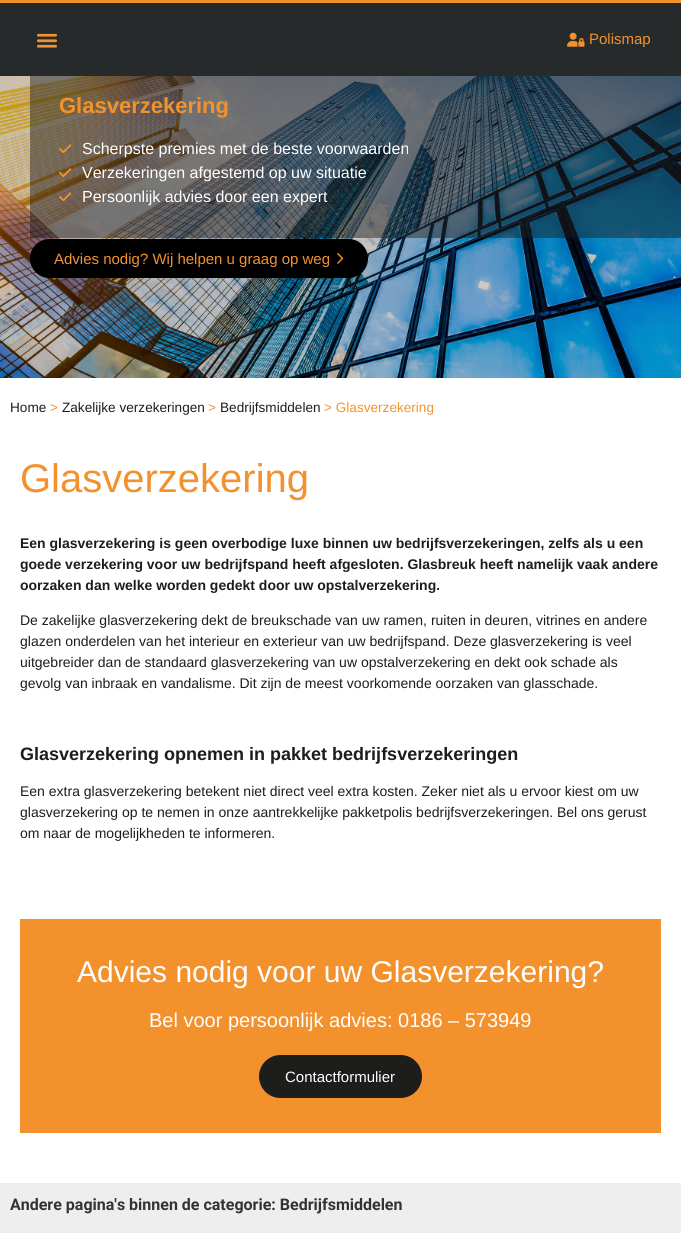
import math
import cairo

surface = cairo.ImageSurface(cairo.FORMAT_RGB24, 681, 1233)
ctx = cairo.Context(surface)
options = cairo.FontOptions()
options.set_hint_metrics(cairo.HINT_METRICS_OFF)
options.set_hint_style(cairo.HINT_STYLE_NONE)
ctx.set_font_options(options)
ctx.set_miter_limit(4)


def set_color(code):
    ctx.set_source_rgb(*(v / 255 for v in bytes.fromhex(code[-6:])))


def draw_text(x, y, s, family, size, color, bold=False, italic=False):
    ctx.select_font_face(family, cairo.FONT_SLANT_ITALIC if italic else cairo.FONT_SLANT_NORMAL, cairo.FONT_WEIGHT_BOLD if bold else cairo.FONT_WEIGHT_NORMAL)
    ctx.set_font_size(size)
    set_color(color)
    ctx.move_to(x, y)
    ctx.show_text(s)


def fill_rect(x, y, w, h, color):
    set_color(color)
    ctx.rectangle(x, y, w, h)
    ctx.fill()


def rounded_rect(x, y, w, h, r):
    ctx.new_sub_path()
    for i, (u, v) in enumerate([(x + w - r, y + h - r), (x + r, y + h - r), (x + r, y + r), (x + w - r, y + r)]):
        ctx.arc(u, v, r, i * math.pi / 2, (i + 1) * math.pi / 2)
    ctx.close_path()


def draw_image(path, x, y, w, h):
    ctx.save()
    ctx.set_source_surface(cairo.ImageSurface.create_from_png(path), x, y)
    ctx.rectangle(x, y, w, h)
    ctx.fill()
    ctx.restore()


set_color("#ffffff")
ctx.paint()
fill_rect(0, 3, 681, 73, "#262a2b")
fill_rect(0, 0, 681, 3, "#f3912d")
draw_image("assets/img1.png", 36, 33, 22, 15)
draw_image("assets/img2.png", 567, 32, 18, 15)
draw_text(589, 44, "Polismap", "Liberation Sans", 15, "#f3912d")
draw_image("assets/img3.png", 0, 76, 681, 302)
ctx.set_source_rgba(0.114, 0.114, 0.106, 0.48)
ctx.rectangle(30, 76, 651, 162)
ctx.fill()
draw_text(59, 113, "Glasverzekering", "Liberation Sans", 22, "#f3912d", bold=True)
draw_image("assets/img4.png", 59, 144, 13, 10)
draw_text(82, 154, "Scherpste premies met de beste voorwaarden", "Liberation Sans", 16, "#ffffff")
draw_image("assets/img5.png", 59, 168, 13, 10)
draw_text(82, 178, "Verzekeringen afgestemd op uw situatie", "Liberation Sans", 16, "#ffffff")
draw_image("assets/img6.png", 59, 192, 13, 10)
draw_text(82, 202, "Persoonlijk advies door een expert", "Liberation Sans", 16, "#ffffff")
set_color("#000000")
rounded_rect(30, 239, 338, 39, 19.5)
ctx.fill()
draw_text(54, 264, "Advies nodig? Wij helpen u graag op weg", "Liberation Sans", 15, "#f3912d")
draw_image("assets/img7.png", 337, 253, 7, 11)
draw_text(10, 412, "Home", "Liberation Sans", 13.6, "#1d1d1b")
draw_text(50, 412, ">", "Liberation Sans", 13.6, "#f3912d")
draw_text(62, 412, "Zakelijke verzekeringen", "Liberation Sans", 13.6, "#1d1d1b")
draw_text(208, 412, ">", "Liberation Sans", 13.6, "#f3912d")
draw_text(220, 412, "Bedrijfsmiddelen", "Liberation Sans", 13.6, "#1d1d1b")
draw_text(324, 412, "> Glasverzekering", "Liberation Sans", 13.6, "#f3912d")
draw_text(20, 492, "Glasverzekering", "Liberation Sans", 40, "#f3912d")
draw_text(20, 548, "Een glasverzekering is geen overbodige luxe binnen uw bedrijfsverzekeringen, zelfs als u een", "Liberation Sans", 14, "#1d1d1b", bold=True)
draw_text(20, 569, "goede verzekering voor uw bedrijfspand heeft afgesloten. Glasbreuk heeft namelijk vaak andere", "Liberation Sans", 14, "#1d1d1b", bold=True)
draw_text(20, 590, "oorzaken dan welke worden gedekt door uw opstalverzekering.", "Liberation Sans", 14, "#1d1d1b", bold=True)
draw_text(20, 625, "De zakelijke glasverzekering dekt de breukschade van uw ramen, ruiten in deuren, vitrines en andere", "Liberation Sans", 14, "#1d1d1b")
draw_text(20, 646, "glazen onderdelen van het interieur en exterieur van uw bedrijfspand. Deze glasverzekering is veel", "Liberation Sans", 14, "#1d1d1b")
draw_text(20, 667, "uitgebreider dan de standaard glasverzekering van uw opstalverzekering en dekt ook schade als", "Liberation Sans", 14, "#1d1d1b")
draw_text(20, 688, "gevolg van inbraak en vandalisme. Dit zijn de meest voorkomende oorzaken van glasschade.", "Liberation Sans", 14, "#1d1d1b")
draw_text(20, 760, "Glasverzekering opnemen in pakket bedrijfsverzekeringen", "Liberation Sans", 18, "#1d1d1b", bold=True)
draw_text(20, 796, "Een extra glasverzekering betekent niet direct veel extra kosten. Zeker niet als u ervoor kiest om uw", "Liberation Sans", 14, "#1d1d1b")
draw_text(20, 817, "glasverzekering op te nemen in onze aantrekkelijke pakketpolis bedrijfsverzekeringen. Bel ons gerust", "Liberation Sans", 14, "#1d1d1b")
draw_text(20, 838, "om naar de mogelijkheden te informeren.", "Liberation Sans", 14, "#1d1d1b")
fill_rect(20, 919, 641, 214, "#f3912d")
draw_text(77, 982, "Advies nodig voor uw Glasverzekering?", "Liberation Sans", 30, "#ffffff")
draw_text(149, 1027, "Bel voor persoonlijk advies: 0186 – 573949", "Liberation Sans", 20, "#ffffff")
set_color("#1d1d1b")
rounded_rect(260, 1056, 161, 41, 20.5)
ctx.fill_preserve()
ctx.stroke()
draw_text(285, 1082, "Contactformulier", "Liberation Sans", 15, "#ffffff")
fill_rect(0, 1183, 681, 50, "#eeeeee")
draw_text(10, 1210, "Andere pagina's binnen de categorie: Bedrijfsmiddelen", "Roboto", 16, "#333333", bold=True)
surface.write_to_png("output.png")
